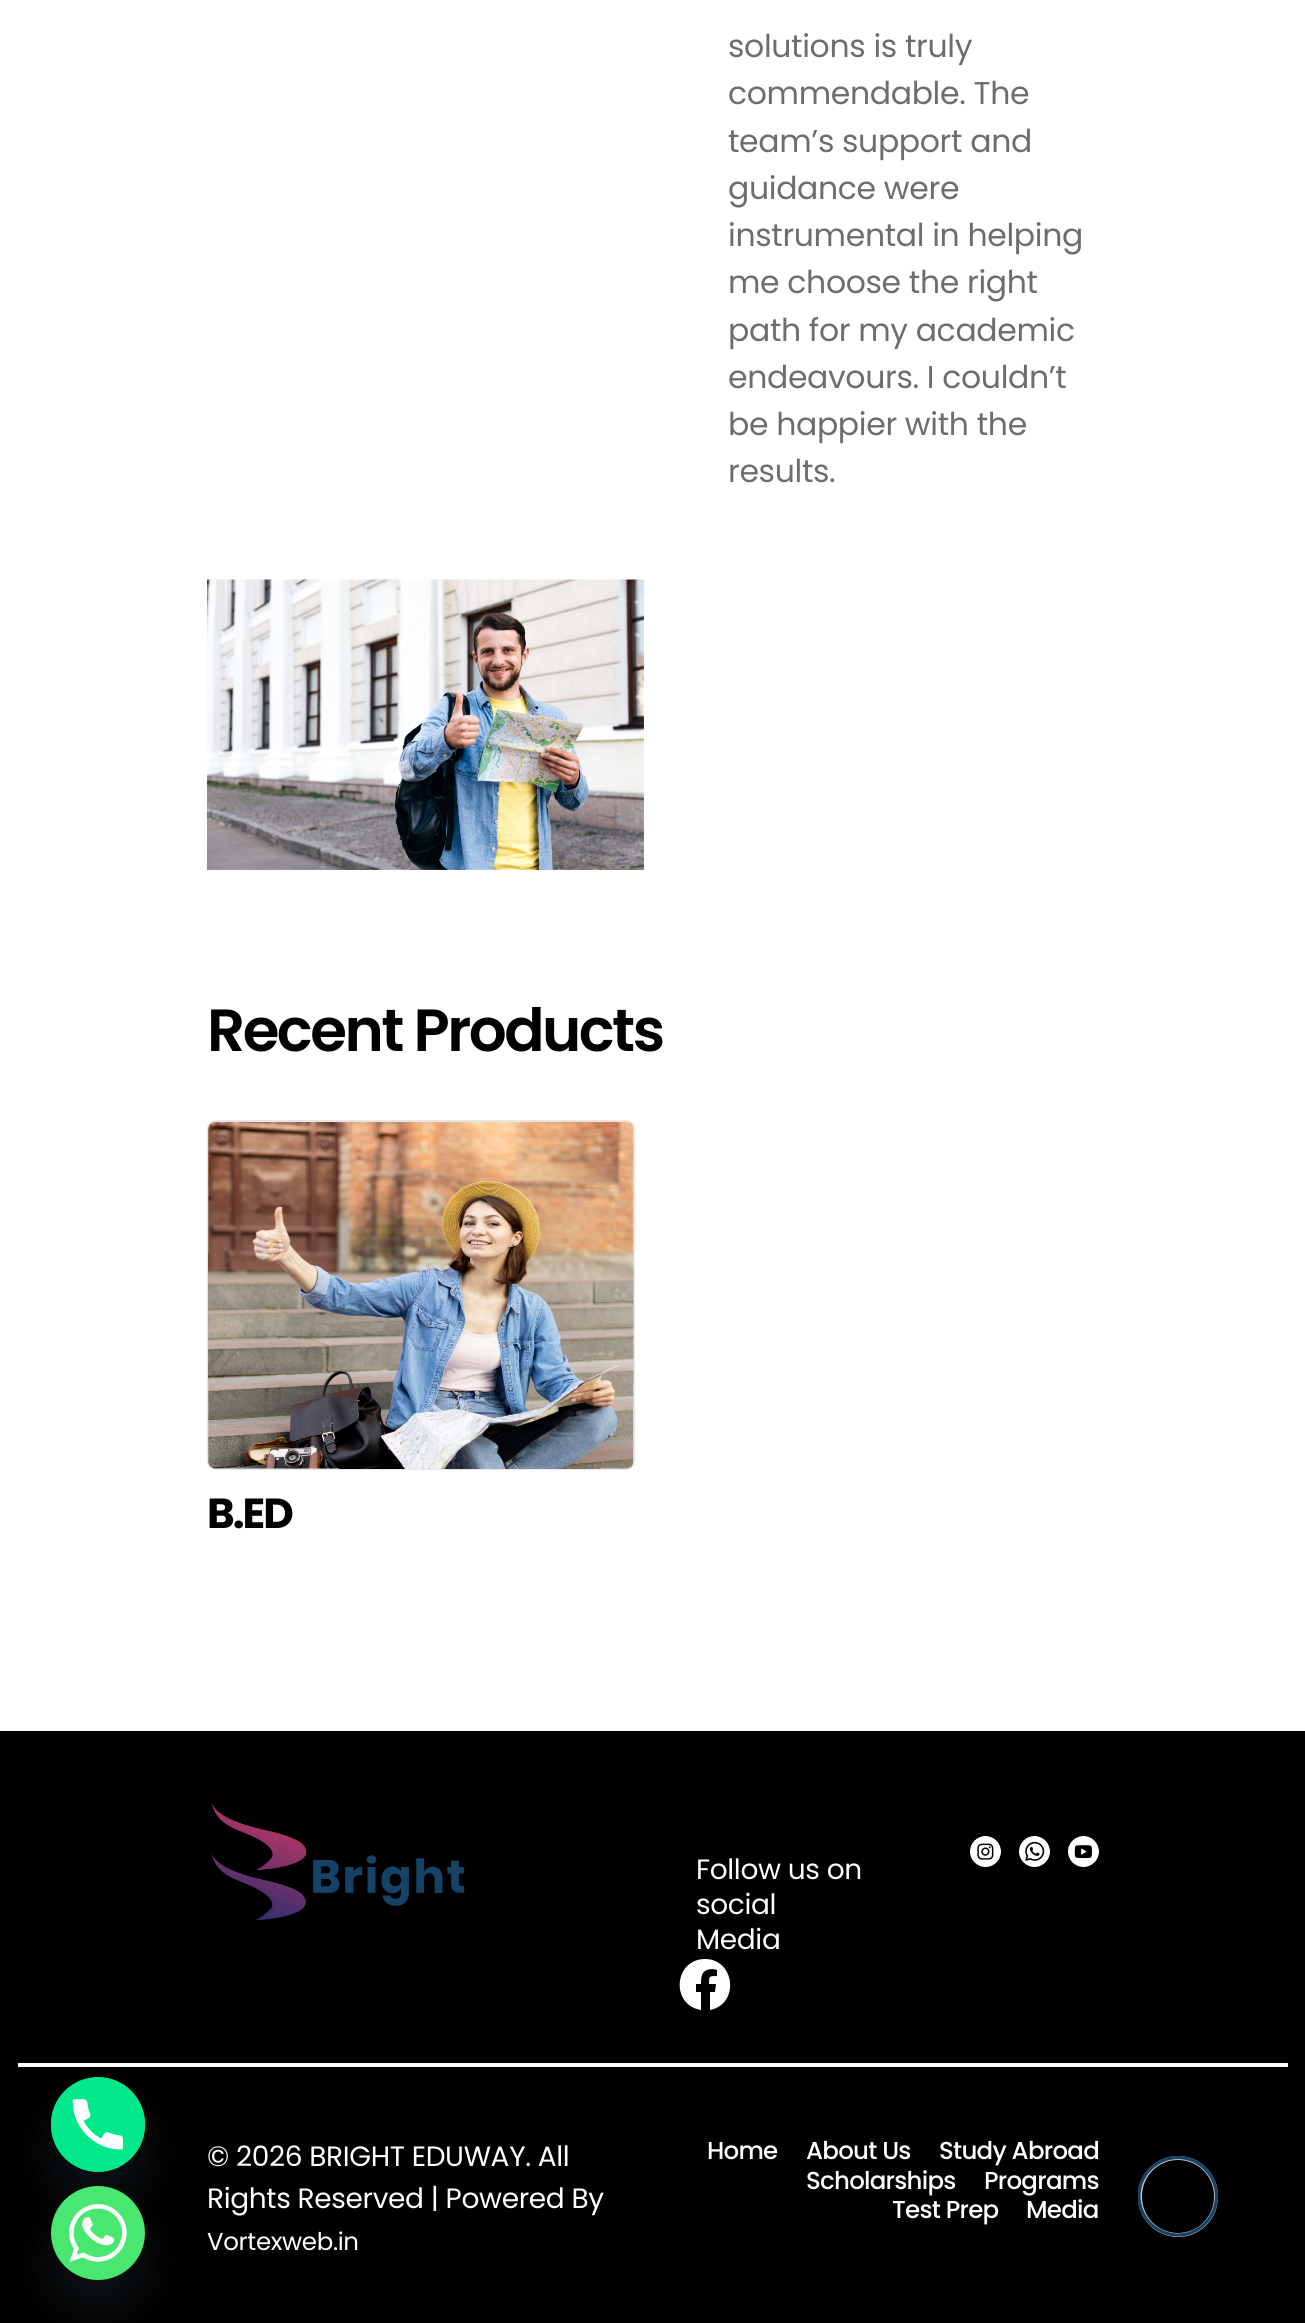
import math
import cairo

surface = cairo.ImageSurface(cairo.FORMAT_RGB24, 1305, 2323)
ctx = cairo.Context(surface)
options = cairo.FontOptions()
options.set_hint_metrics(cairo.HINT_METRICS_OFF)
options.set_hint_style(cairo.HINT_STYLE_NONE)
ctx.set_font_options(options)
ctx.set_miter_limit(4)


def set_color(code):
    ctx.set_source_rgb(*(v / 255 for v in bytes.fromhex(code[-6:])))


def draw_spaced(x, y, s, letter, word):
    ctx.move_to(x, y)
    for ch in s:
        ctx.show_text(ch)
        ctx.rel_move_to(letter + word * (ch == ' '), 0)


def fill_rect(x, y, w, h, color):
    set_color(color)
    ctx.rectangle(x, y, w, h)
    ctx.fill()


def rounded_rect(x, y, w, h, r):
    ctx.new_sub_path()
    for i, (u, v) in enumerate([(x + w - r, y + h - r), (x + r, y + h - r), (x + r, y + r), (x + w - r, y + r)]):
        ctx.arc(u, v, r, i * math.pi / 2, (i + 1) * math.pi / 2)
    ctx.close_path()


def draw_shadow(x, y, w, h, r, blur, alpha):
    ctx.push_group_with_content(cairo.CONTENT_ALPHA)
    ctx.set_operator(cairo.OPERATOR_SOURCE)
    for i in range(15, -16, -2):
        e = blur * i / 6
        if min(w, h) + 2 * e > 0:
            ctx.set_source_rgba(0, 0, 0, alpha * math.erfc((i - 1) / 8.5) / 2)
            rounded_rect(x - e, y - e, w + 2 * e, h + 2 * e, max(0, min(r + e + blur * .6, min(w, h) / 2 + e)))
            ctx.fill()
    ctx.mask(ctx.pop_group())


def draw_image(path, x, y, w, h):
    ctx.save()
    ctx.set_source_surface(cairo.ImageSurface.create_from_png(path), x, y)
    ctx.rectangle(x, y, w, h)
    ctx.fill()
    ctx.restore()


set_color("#ffffff")
ctx.paint()
ctx.select_font_face("Poppins")
ctx.set_font_size(31.5)
set_color("#6d6d6d")
draw_spaced(728, 57, "solutions is truly", -0.35, 0)
draw_spaced(728, 104, "commendable. The", -0.35, 0)
draw_spaced(728, 152, "team’s support and", -0.35, 0)
draw_spaced(728, 199, "guidance were", -0.35, 0)
draw_spaced(728, 246, "instrumental in helping", -0.35, 0)
draw_spaced(728, 293, "me choose the right", -0.35, 0)
draw_spaced(728, 341, "path for my academic", -0.35, 0)
draw_spaced(728, 388, "endeavours. I couldn’t", -0.35, 0)
draw_spaced(728, 435, "be happier with the", -0.35, 0)
draw_spaced(728, 482, "results.", -0.35, 0)
draw_image("assets/img1.png", 207, 579, 437, 291)
ctx.select_font_face("Poppins SemiBold")
ctx.set_font_size(59.5)
set_color("#000000")
draw_spaced(207, 1051, "Recent Products", -2.5, 0)
rounded_rect(208, 1121, 426, 348, 8)
set_color("#e6e6e6")
ctx.stroke()
draw_image("assets/img2.png", 208, 1122, 426, 347)
ctx.select_font_face("Poppins", cairo.FONT_SLANT_NORMAL, cairo.FONT_WEIGHT_BOLD)
ctx.set_font_size(42)
set_color("#000000")
draw_spaced(207, 1528, "B.ED", -2, 0)
fill_rect(0, 1731, 1305, 592, "#000000")
fill_rect(18, 2063, 1270, 4, "#ffffff")
set_color("#49687e")
draw_shadow(51, 2105, 94, 95, 47, 21, 0.16)
set_color("#03e78b")
rounded_rect(51, 2077, 94, 95, 47)
ctx.fill()
draw_image("assets/img3.png", 51, 2077, 94, 95)
set_color("#49687e")
draw_shadow(51, 2214, 94, 94, 47, 21, 0.16)
draw_image("assets/img4.png", 51, 2186, 94, 94)
draw_image("assets/img5.png", 211, 1801, 254, 120)
draw_image("assets/img6.png", 970, 1836, 31, 31)
draw_image("assets/img7.png", 1019, 1836, 31, 31)
draw_image("assets/img8.png", 1068, 1836, 31, 31)
ctx.select_font_face("Poppins")
ctx.set_font_size(28)
set_color("#ffffff")
draw_spaced(696, 1879, "Follow us on", -0.35, 0)
draw_spaced(696, 1914, "social", -0.35, 0)
draw_spaced(696, 1949, "Media", -0.35, 0)
ctx.set_fill_rule(cairo.FILL_RULE_EVEN_ODD)
ctx.new_path()
ctx.move_to(705, 1959)
ctx.curve_to(735, 1959, 740, 2004, 710, 2010)
ctx.line_to(710, 1992)
ctx.line_to(715, 1992)
ctx.line_to(716, 1984)
ctx.line_to(709, 1984)
ctx.curve_to(709, 1976, 709, 1976, 717, 1976)
ctx.line_to(717, 1970)
ctx.curve_to(712, 1968, 704, 1969, 702, 1975)
ctx.curve_to(701, 1978, 701, 1981, 701, 1984)
ctx.line_to(696, 1984)
ctx.line_to(696, 1992)
ctx.line_to(701, 1992)
ctx.line_to(701, 2010)
ctx.curve_to(670, 2005, 674, 1959, 705, 1959)
ctx.close_path()
ctx.fill()
draw_spaced(207, 2166, "© 2026 BRIGHT EDUWAY. All", -0.35, 0)
draw_spaced(207, 2208, "Rights Reserved | Powered By", -0.35, 0)
ctx.set_font_size(24.5)
draw_spaced(207, 2250, "Vortexweb.in", -0.35, 0)
ctx.select_font_face("Poppins Medium")
draw_spaced(707, 2159, "Home", -0.75, 0)
draw_spaced(806, 2159, "About Us", -0.75, 0)
draw_spaced(939, 2159, "Study Abroad", -0.75, 0)
draw_spaced(806, 2189, "Scholarships", -0.75, 0)
draw_spaced(984, 2189, "Programs", -0.75, 0)
draw_spaced(892, 2218, "Test Prep", -0.75, 0)
draw_spaced(1026, 2218, "Media", -0.75, 0)
rounded_rect(1140, 2158, 76, 77, 38)
set_color("#cccccc")
ctx.set_line_width(4)
ctx.stroke()
ctx.save()
ctx.set_fill_rule(cairo.FILL_RULE_WINDING)
ctx.rectangle(1138, 2156, 80, 81)
ctx.clip()
ctx.new_path()
ctx.move_to(1178, 2157.5)
ctx.curve_to(1199, 2157.5, 1216.5, 2175, 1216.5, 2196)
ctx.curve_to(1216.5, 2217.5, 1199, 2235, 1178, 2235)
ctx.curve_to(1156.5, 2235, 1139, 2217.5, 1139, 2196)
ctx.curve_to(1139, 2175, 1156.5, 2157.5, 1178, 2157.5)
set_color("#144367")
ctx.set_line_width(3.2)
ctx.stroke()
ctx.restore()
surface.write_to_png("output.png")
